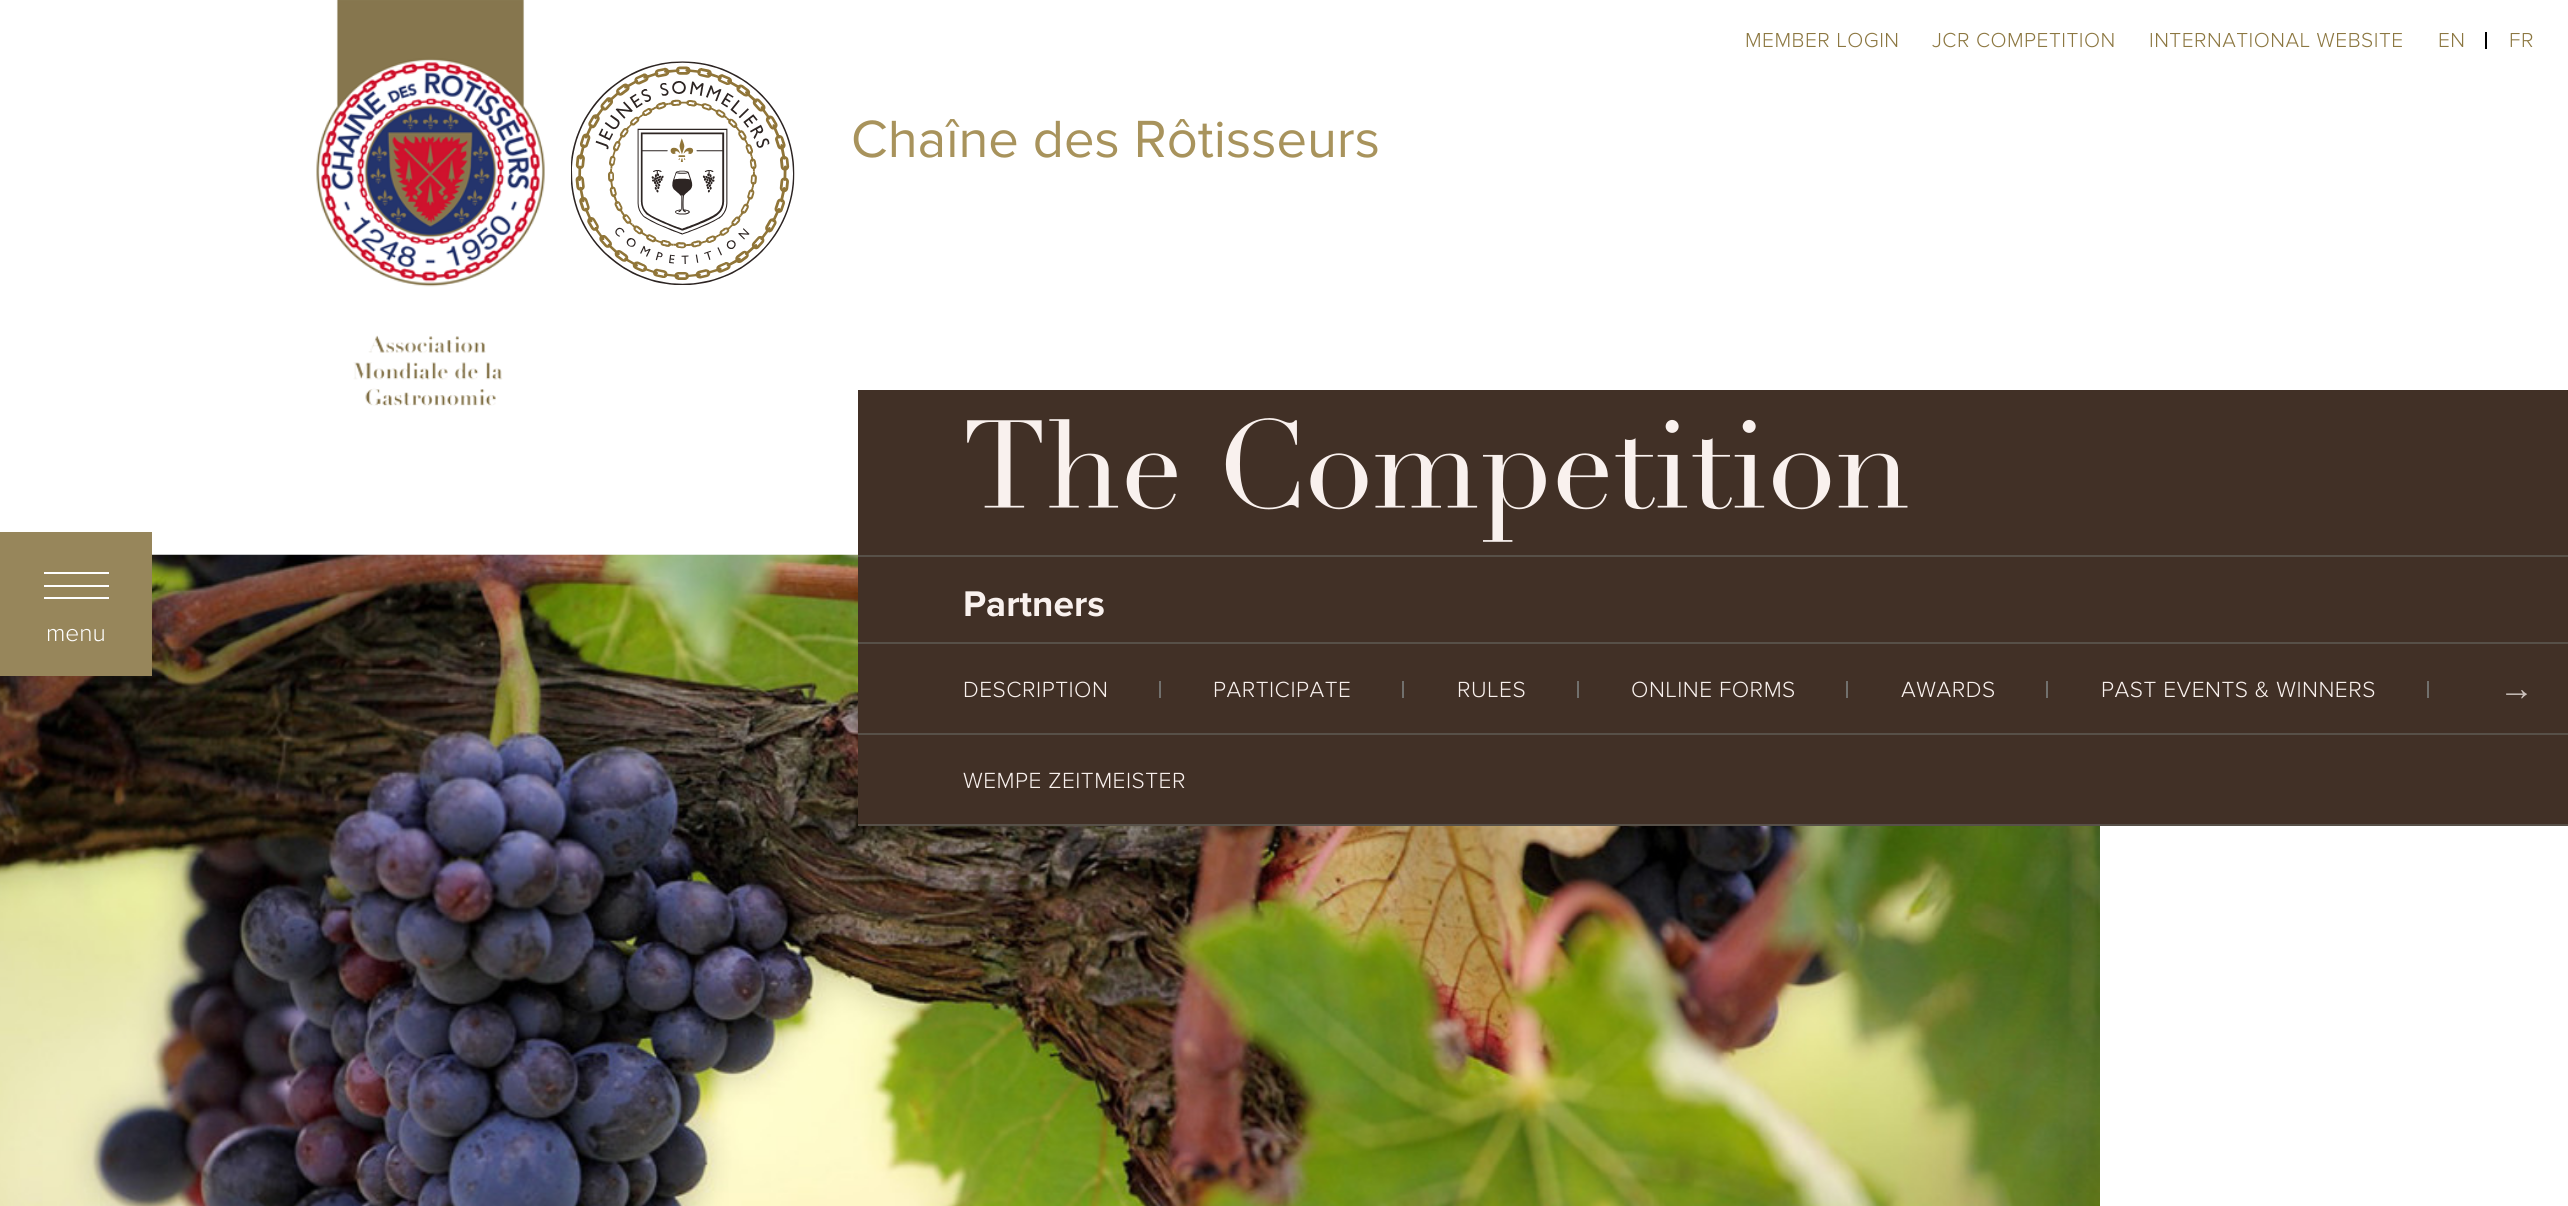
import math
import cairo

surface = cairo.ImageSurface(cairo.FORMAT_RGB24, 2568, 1206)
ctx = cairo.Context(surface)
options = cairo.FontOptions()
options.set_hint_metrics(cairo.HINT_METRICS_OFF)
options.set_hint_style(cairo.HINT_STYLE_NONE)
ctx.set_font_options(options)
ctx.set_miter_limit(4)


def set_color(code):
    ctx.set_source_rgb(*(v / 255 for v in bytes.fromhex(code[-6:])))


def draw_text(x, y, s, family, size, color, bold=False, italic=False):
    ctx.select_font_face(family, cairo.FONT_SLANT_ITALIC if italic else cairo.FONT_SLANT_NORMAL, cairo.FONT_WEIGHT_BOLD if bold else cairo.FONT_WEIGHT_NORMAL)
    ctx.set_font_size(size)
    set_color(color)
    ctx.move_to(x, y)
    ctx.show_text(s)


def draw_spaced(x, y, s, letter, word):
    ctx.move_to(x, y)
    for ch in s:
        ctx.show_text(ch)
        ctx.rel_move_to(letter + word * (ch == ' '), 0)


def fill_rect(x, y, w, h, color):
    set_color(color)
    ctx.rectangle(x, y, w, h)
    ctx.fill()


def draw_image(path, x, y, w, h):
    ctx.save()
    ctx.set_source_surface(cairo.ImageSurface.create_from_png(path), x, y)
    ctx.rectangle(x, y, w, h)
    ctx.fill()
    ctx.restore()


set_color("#ffffff")
ctx.paint()
draw_image("assets/img1.png", 316, 0, 229, 406)
draw_image("assets/img2.png", 571, 61, 224, 224)
ctx.select_font_face("Proxima Nova Light")
ctx.set_font_size(21)
set_color("#8c7741")
draw_spaced(1745, 47, "MEMBER LOGIN", 0.5, 0)
draw_spaced(1932, 47, "JCR COMPETITION", 0.5, 0)
draw_spaced(2149, 47, "INTERNATIONAL WEBSITE", 0.5, 0)
draw_spaced(2438, 47, "EN", 0.5, 0)
fill_rect(2485, 32, 2, 17, "#000000")
set_color("#8c7741")
draw_spaced(2509, 47, "FR", 0.5, 0)
draw_text(851, 157, "Chaîne des Rôtisseurs", "Proxima Nova", 54.25, "#a8935c")
draw_image("assets/img3.png", 0, 554, 2100, 652)
fill_rect(0, 532, 152, 144, "#97865b")
fill_rect(44, 585, 65, 2, "#ffffff")
fill_rect(44, 572, 65, 2, "#ffffff")
fill_rect(44, 597, 65, 2, "#ffffff")
draw_text(46, 641, "menu", "Proxima Nova Light", 24.5, "#ffffff")
fill_rect(858, 390, 1710, 434, "#413026")
fill_rect(858, 555, 1710, 2, "#575048")
draw_image("assets/img4.png", 967, 418, 941, 124)
fill_rect(858, 642, 1710, 2, "#575048")
draw_text(963, 616, "Partners", "Proxima Nova", 37, "#f9f1ee", bold=True)
ctx.select_font_face("Proxima Nova Light")
ctx.set_font_size(22.75)
draw_spaced(963, 697, "DESCRIPTION", 0.5, 0)
fill_rect(1159, 681, 2, 17, "#71706d")
set_color("#f9f1ee")
draw_spaced(1213, 697, "PARTICIPATE", 0.5, 0)
fill_rect(1402, 681, 2, 17, "#71706d")
set_color("#f9f1ee")
draw_spaced(1457, 697, "RULES", 0.5, 0)
fill_rect(1577, 681, 2, 17, "#71706d")
set_color("#f9f1ee")
draw_spaced(1631, 697, "ONLINE FORMS", 0.5, 0)
fill_rect(1846, 681, 2, 17, "#71706d")
set_color("#f9f1ee")
draw_spaced(1901, 697, "AWARDS", 0.5, 0)
fill_rect(2046, 681, 2, 17, "#71706d")
set_color("#f9f1ee")
draw_spaced(2101, 697, "PAST EVENTS & WINNERS", 0.5, 0)
fill_rect(2427, 681, 2, 17, "#71706d")
draw_text(2499, 700, "→", "Liberation Serif", 35, "#cbc1bc")
fill_rect(858, 733, 1710, 2, "#575048")
ctx.select_font_face("Proxima Nova Light")
ctx.set_font_size(22.75)
set_color("#f9f1ee")
draw_spaced(963, 788, "WEMPE ZEITMEISTER", 0.5, 0)
fill_rect(858, 824, 1710, 2, "#575048")
surface.write_to_png("output.png")
